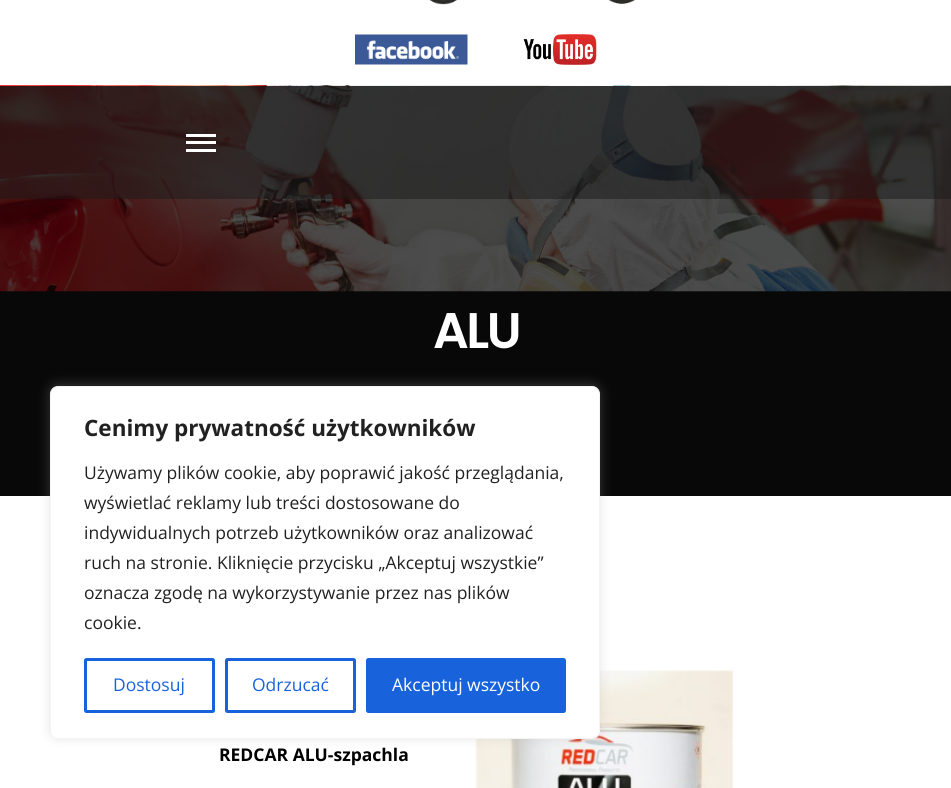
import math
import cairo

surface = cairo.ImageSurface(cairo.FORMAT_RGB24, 951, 788)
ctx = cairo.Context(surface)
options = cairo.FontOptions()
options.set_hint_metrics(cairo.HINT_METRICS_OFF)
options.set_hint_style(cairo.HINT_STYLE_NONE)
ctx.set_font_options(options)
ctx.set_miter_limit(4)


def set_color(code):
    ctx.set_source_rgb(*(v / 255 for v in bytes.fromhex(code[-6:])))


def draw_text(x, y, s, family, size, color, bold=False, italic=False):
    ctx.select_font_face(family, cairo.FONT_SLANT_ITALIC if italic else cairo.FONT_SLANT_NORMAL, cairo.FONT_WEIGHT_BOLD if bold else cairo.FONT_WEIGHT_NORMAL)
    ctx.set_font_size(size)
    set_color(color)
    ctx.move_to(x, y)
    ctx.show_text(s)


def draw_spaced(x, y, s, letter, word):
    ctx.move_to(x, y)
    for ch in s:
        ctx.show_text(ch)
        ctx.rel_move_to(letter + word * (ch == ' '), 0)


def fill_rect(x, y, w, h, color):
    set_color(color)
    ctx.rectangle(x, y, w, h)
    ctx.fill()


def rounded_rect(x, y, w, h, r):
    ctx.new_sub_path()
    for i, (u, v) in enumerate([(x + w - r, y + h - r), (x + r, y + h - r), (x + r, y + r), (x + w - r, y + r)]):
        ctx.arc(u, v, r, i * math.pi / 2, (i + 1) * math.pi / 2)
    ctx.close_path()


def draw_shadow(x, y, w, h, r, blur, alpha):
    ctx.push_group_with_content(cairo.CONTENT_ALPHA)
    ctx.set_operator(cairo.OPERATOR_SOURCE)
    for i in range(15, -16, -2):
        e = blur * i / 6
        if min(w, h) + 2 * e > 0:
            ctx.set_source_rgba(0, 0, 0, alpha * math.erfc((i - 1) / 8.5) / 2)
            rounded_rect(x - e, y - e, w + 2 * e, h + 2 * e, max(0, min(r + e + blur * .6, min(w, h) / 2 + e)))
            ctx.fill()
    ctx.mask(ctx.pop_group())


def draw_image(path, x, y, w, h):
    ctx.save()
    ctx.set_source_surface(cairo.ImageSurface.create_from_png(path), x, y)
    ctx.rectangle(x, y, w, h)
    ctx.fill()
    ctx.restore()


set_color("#ffffff")
ctx.paint()
draw_image("assets/img1.png", 429, 0, 29, 5)
draw_image("assets/img2.png", 608, 0, 27, 4)
draw_image("assets/img3.png", 355, 34, 113, 31)
draw_image("assets/img4.png", 523, 34, 74, 31)
fill_rect(0, 291, 951, 205, "#080808")
draw_image("assets/img5.png", 0, 85, 951, 207)
ctx.set_source_rgba(0.106, 0.106, 0.106, 0.5)
ctx.rectangle(0, 86, 951, 113)
ctx.fill()
fill_rect(186, 141, 30, 3, "#ffffff")
fill_rect(186, 134, 30, 3, "#ffffff")
fill_rect(186, 149, 30, 3, "#ffffff")
ctx.select_font_face("Poppins SemiBold")
ctx.set_font_size(50)
draw_spaced(433, 348, "ALU", -2.5, 0)
draw_text(219, 761, "REDCAR ALU-szpachla", "Open Sans", 17.5, "#000000", bold=True)
draw_image("assets/img6.png", 475, 670, 258, 118)
set_color("#acabab")
draw_shadow(50, 385, 550, 353, 8, 6, 0.3)
set_color("#ffffff")
rounded_rect(50.5, 386.5, 549, 352, 7.5)
ctx.fill_preserve()
set_color("#f4f4f4")
ctx.set_line_width(1)
ctx.stroke()
draw_text(84, 436, "Cenimy prywatność użytkowników", "Open Sans", 22.5, "#212121", bold=True)
draw_text(84, 479, "Używamy plików cookie, aby poprawić jakość przeglądania,", "Open Sans", 17.5, "#212121")
draw_text(84, 509, "wyświetlać reklamy lub treści dostosowane do", "Open Sans", 17.5, "#212121")
draw_text(84, 539, "indywidualnych potrzeb użytkowników oraz analizować", "Open Sans", 17.5, "#212121")
draw_text(84, 569, "ruch na stronie. Kliknięcie przycisku „Akceptuj wszystkie”", "Open Sans", 17.5, "#212121")
draw_text(84, 599, "oznacza zgodę na wykorzystywanie przez nas plików", "Open Sans", 17.5, "#212121")
draw_text(84, 629, "cookie.", "Open Sans", 17.5, "#212121")
rounded_rect(85.5, 659.5, 128, 52, 1)
set_color("#1863dc")
ctx.set_line_width(3)
ctx.stroke()
draw_text(113, 691, "Dostosuj", "Open Sans", 17.5, "#1863dc")
rounded_rect(226.5, 659.5, 128, 52, 1)
ctx.stroke()
draw_text(252, 691, "Odrzucać", "Open Sans", 17.5, "#1863dc")
rounded_rect(367.5, 659.5, 197, 52, 1)
ctx.fill_preserve()
ctx.stroke()
draw_text(392, 691, "Akceptuj wszystko", "Open Sans", 17.5, "#ffffff")
surface.write_to_png("output.png")
